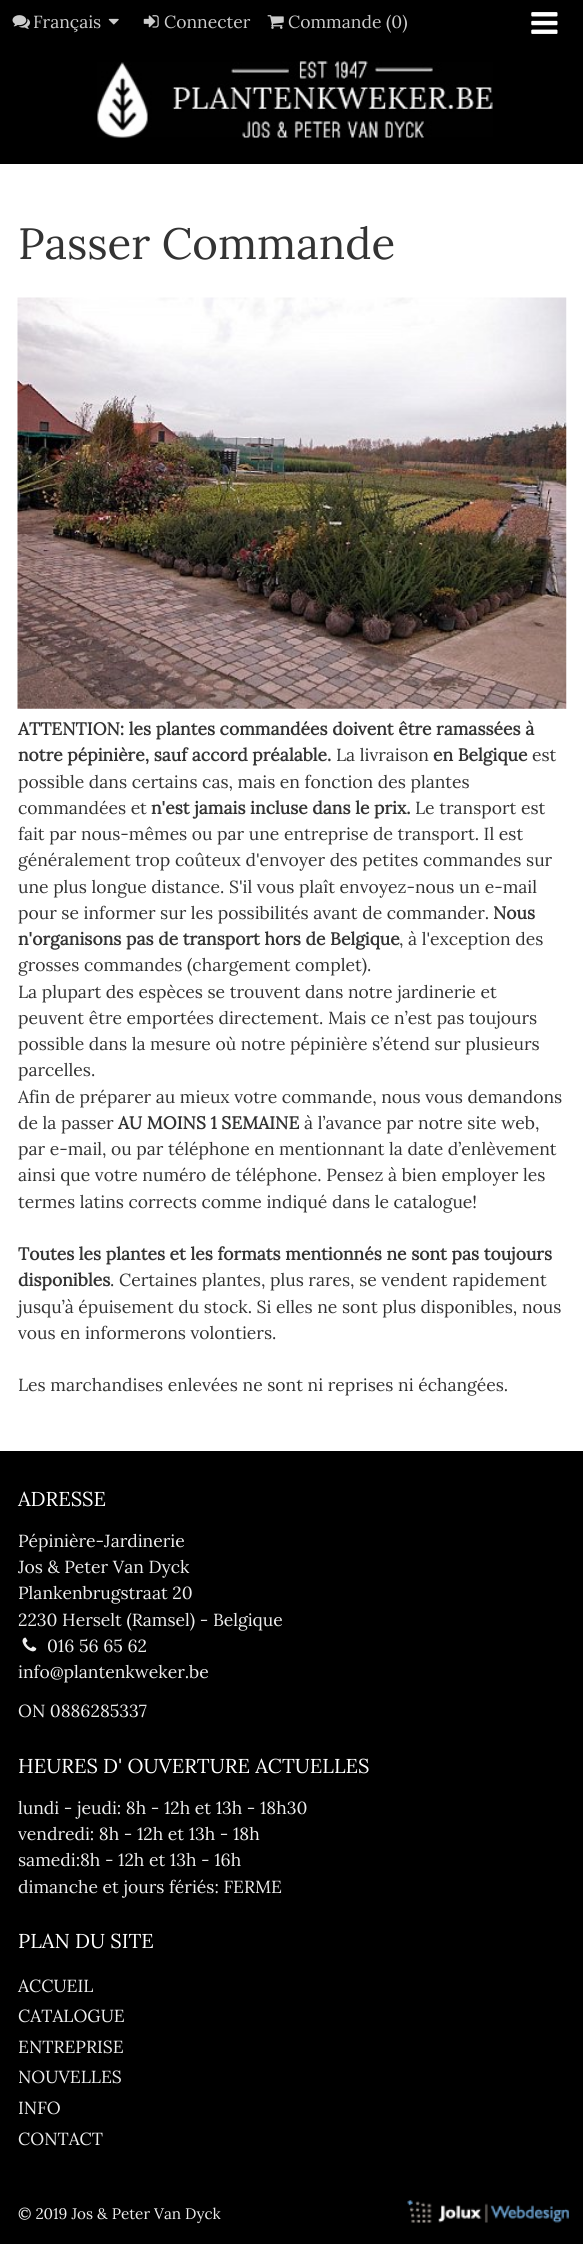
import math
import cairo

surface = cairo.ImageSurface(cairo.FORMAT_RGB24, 583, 2253)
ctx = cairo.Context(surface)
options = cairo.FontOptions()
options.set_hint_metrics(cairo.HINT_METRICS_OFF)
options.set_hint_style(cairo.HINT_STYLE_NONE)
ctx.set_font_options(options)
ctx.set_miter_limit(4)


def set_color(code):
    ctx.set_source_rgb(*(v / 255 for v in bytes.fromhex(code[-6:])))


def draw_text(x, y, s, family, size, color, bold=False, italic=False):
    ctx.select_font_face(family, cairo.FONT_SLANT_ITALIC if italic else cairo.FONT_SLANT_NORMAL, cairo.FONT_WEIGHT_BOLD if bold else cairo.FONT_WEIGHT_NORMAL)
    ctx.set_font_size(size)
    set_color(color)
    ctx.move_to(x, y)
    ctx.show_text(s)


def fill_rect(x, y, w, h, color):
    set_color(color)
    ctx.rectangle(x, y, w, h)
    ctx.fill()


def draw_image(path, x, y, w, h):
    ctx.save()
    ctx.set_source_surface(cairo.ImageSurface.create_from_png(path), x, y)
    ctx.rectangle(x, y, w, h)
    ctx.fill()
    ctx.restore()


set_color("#ffffff")
ctx.paint()
fill_rect(0, 0, 583, 164, "#000000")
draw_image("assets/img1.png", 12, 15, 18, 14)
draw_text(33, 28, "Français", "Lora", 17.5, "#cccccc")
draw_image("assets/img2.png", 108, 18, 11, 7)
draw_image("assets/img3.png", 143, 15, 16, 13)
draw_text(164, 28, "Connecter", "Lora", 17.5, "#cccccc")
draw_image("assets/img4.png", 267, 15, 17, 14)
draw_text(288, 28, "Commande (0)", "Lora", 17.5, "#cccccc")
draw_image("assets/img5.png", 531, 12, 27, 22)
draw_image("assets/img6.png", 97, 61, 396, 77)
draw_text(18, 259, "Passer Commande", "Lora", 43.75, "#333333")
draw_image("assets/img7.png", 17, 297, 550, 412)
draw_text(18, 735, "ATTENTION: les plantes commandées doivent être ramassées à", "Lora", 17.5, "#333333", bold=True)
draw_text(18, 761, "notre pépinière, sauf accord préalable.", "Lora", 17.5, "#333333", bold=True)
draw_text(336, 761, "La livraison", "Lora", 17.5, "#333333")
draw_text(433, 761, "en Belgique", "Lora", 17.5, "#333333", bold=True)
draw_text(532, 761, "est", "Lora", 17.5, "#333333")
draw_text(18, 788, "possible dans certains cas, mais en fonction des plantes", "Lora", 17.5, "#333333")
draw_text(18, 814, "commandées et", "Lora", 17.5, "#333333")
draw_text(151, 814, "n'est jamais incluse dans le prix.", "Lora", 17.5, "#333333", bold=True)
draw_text(415, 814, "Le transport est", "Lora", 17.5, "#333333")
draw_text(18, 840, "fait par nous-mêmes ou par une entreprise de transport. Il est", "Lora", 17.5, "#333333")
draw_text(18, 866, "généralement trop coûteux d'envoyer des petites commandes sur", "Lora", 17.5, "#333333")
draw_text(18, 893, "une plus longue distance. S'il vous plaît envoyez-nous un e-mail", "Lora", 17.5, "#333333")
draw_text(18, 919, "pour se informer sur les possibilités avant de commander.", "Lora", 17.5, "#333333")
draw_text(493, 919, "Nous", "Lora", 17.5, "#333333", bold=True)
draw_text(18, 945, "n'organisons pas de transport hors de Belgique", "Lora", 17.5, "#333333", bold=True)
draw_text(399, 945, ", à l'exception des", "Lora", 17.5, "#333333")
draw_text(18, 971, "grosses commandes (chargement complet).", "Lora", 17.5, "#333333")
draw_text(18, 998, "La plupart des espèces se trouvent dans notre jardinerie et", "Lora", 17.5, "#333333")
draw_text(18, 1024, "peuvent être emportées directement. Mais ce n’est pas toujours", "Lora", 17.5, "#333333")
draw_text(18, 1050, "possible dans la mesure où notre pépinière s’étend sur plusieurs", "Lora", 17.5, "#333333")
draw_text(18, 1076, "parcelles.", "Lora", 17.5, "#333333")
draw_text(18, 1103, "Afin de préparer au mieux votre commande, nous vous demandons", "Lora", 17.5, "#333333")
draw_text(18, 1129, "de la passer", "Lora", 17.5, "#333333")
draw_text(118, 1129, "AU MOINS 1 SEMAINE", "Lora", 17.5, "#333333", bold=True)
draw_text(304, 1129, "à l’avance par notre site web,", "Lora", 17.5, "#333333")
draw_text(18, 1155, "par e-mail, ou par téléphone en mentionnant la date d’enlèvement", "Lora", 17.5, "#333333")
draw_text(18, 1181, "ainsi que votre numéro de téléphone. Pensez à bien employer les", "Lora", 17.5, "#333333")
draw_text(18, 1208, "termes latins corrects comme indiqué dans le catalogue!", "Lora", 17.5, "#333333")
draw_text(18, 1260, "Toutes les plantes et les formats mentionnés ne sont pas toujours", "Lora", 17.5, "#333333", bold=True)
draw_text(18, 1286, "disponibles", "Lora", 17.5, "#333333", bold=True)
draw_text(110, 1286, ". Certaines plantes, plus rares, se vendent rapidement", "Lora", 17.5, "#333333")
draw_text(18, 1313, "jusqu’à épuisement du stock. Si elles ne sont plus disponibles, nous", "Lora", 17.5, "#333333")
draw_text(18, 1339, "vous en informerons volontiers.", "Lora", 17.5, "#333333")
draw_text(18, 1391, "Les marchandises enlevées ne sont ni reprises ni échangées.", "Lora", 17.5, "#333333")
fill_rect(0, 1451, 583, 793, "#000000")
draw_text(18, 1506, "ADRESSE", "Lora", 20.1, "#ffffff")
draw_text(18, 1547, "Pépinière-Jardinerie", "Lora", 17.5, "#eeeeee")
draw_text(18, 1573, "Jos & Peter Van Dyck", "Lora", 17.5, "#eeeeee")
draw_text(18, 1599, "Plankenbrugstraat 20", "Lora", 17.5, "#eeeeee")
draw_text(18, 1626, "2230 Herselt (Ramsel) - Belgique", "Lora", 17.5, "#eeeeee")
draw_image("assets/img8.png", 22, 1637, 15, 15)
draw_text(47, 1652, "016 56 65 62", "Lora", 17.5, "#eeeeee")
draw_text(18, 1678, "info@plantenkweker.be", "Lora", 17.5, "#eeeeee")
draw_text(18, 1717, "ON 0886285337", "Lora", 17.5, "#eeeeee")
draw_text(18, 1773, "HEURES D' OUVERTURE ACTUELLES", "Lora", 20.1, "#ffffff")
draw_text(18, 1814, "lundi - jeudi: 8h - 12h et 13h - 18h30", "Lora", 17.5, "#eeeeee")
draw_text(18, 1840, "vendredi: 8h - 12h et 13h - 18h", "Lora", 17.5, "#eeeeee")
draw_text(18, 1866, "samedi:8h - 12h et 13h - 16h", "Lora", 17.5, "#eeeeee")
draw_text(18, 1893, "dimanche et jours fériés: FERME", "Lora", 17.5, "#eeeeee")
draw_text(18, 1948, "PLAN DU SITE", "Lora", 20.1, "#ffffff")
draw_text(18, 1992, "ACCUEIL", "Lora", 17.5, "#eeeeee")
draw_text(18, 2022, "CATALOGUE", "Lora", 17.5, "#eeeeee")
draw_text(18, 2053, "ENTREPRISE", "Lora", 17.5, "#eeeeee")
draw_text(18, 2083, "NOUVELLES", "Lora", 17.5, "#eeeeee")
draw_text(18, 2114, "INFO", "Lora", 17.5, "#eeeeee")
draw_text(18, 2145, "CONTACT", "Lora", 17.5, "#eeeeee")
draw_text(18, 2219, "© 2019 Jos & Peter Van Dyck", "Lora", 15.25, "#eeeeee")
draw_image("assets/img9.png", 407, 2200, 162, 23)
surface.write_to_png("output.png")
